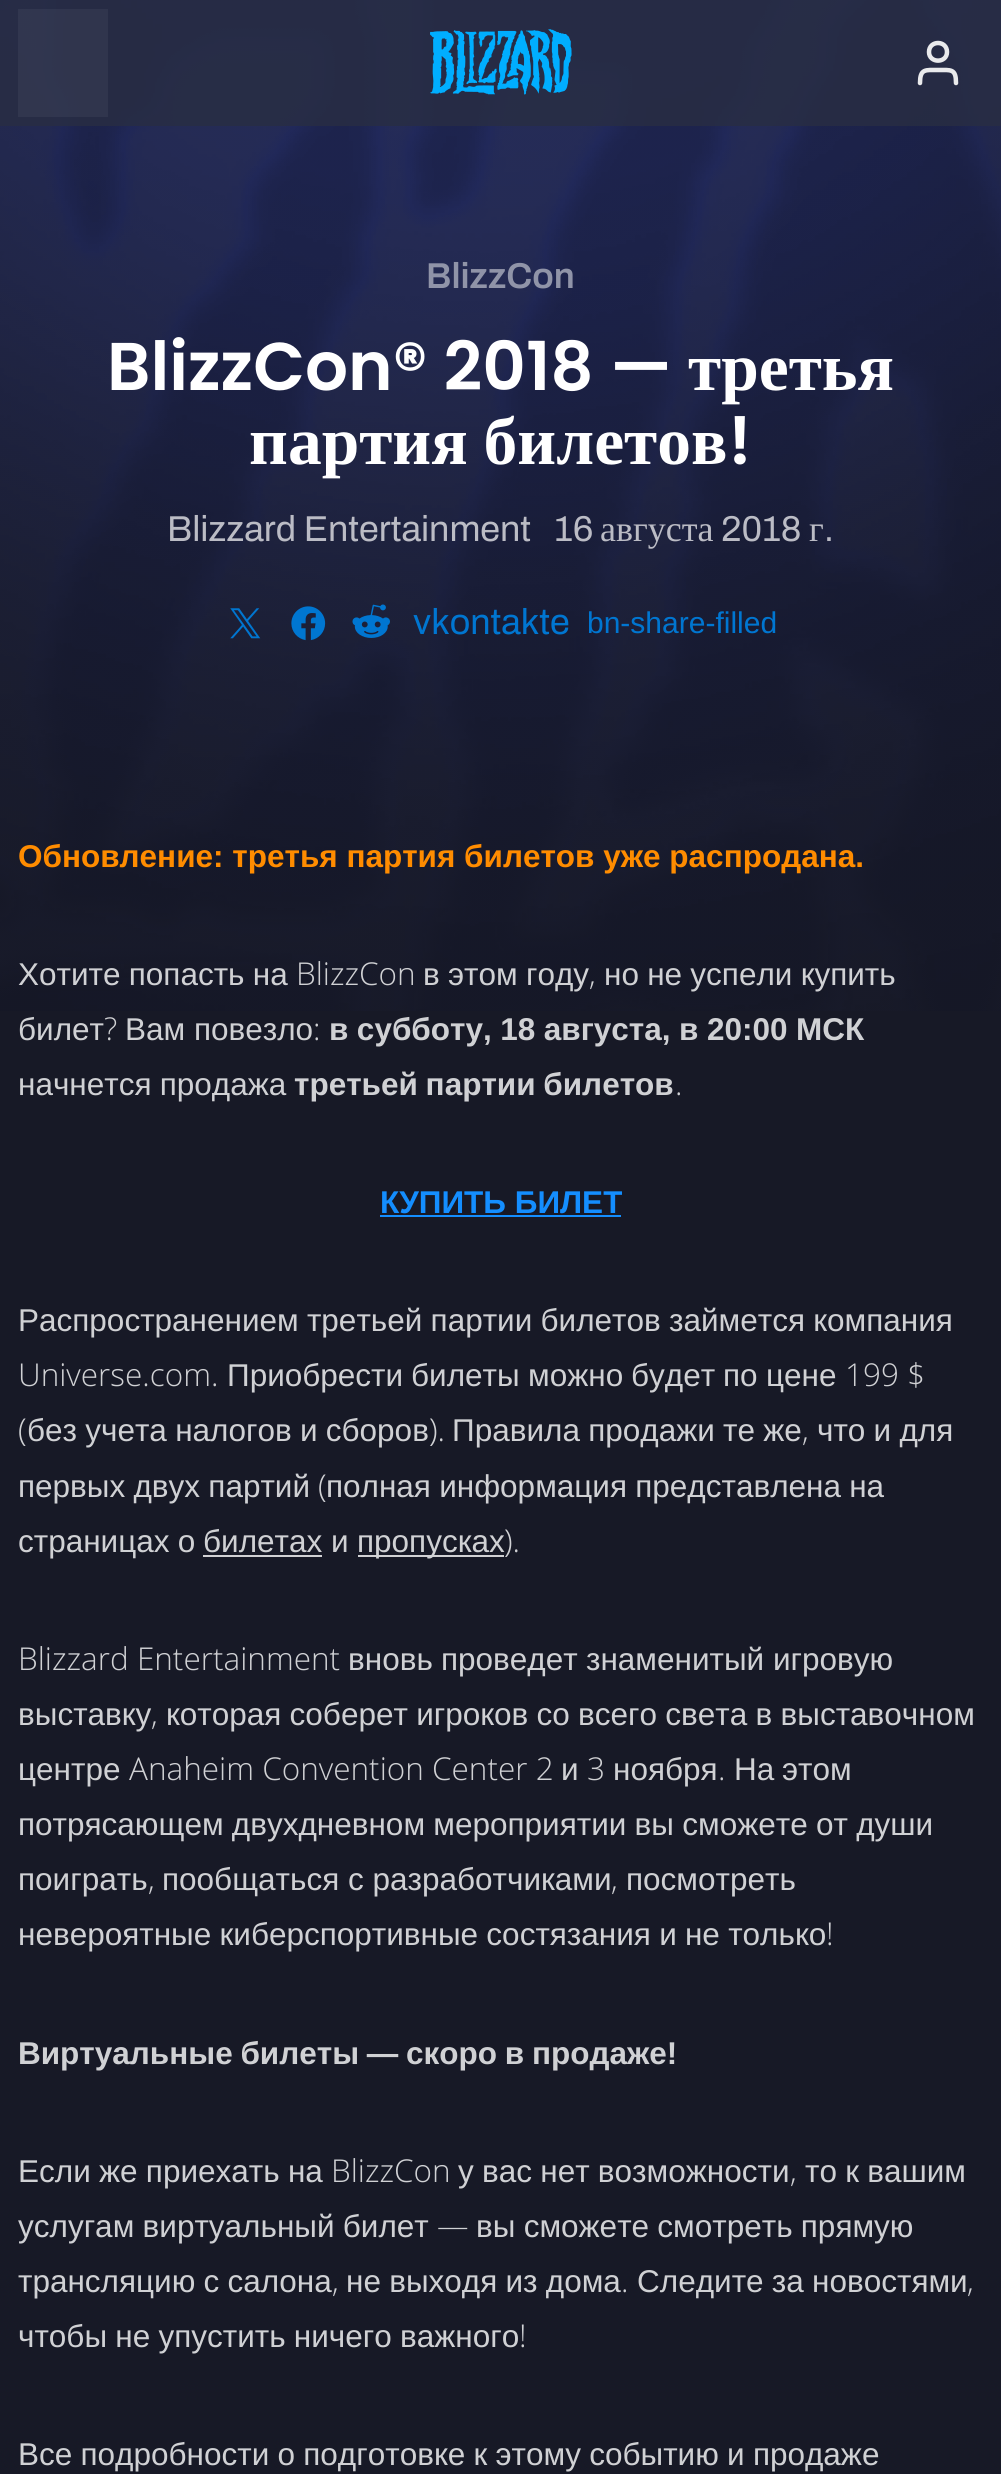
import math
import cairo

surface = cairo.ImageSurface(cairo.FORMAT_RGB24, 1001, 2474)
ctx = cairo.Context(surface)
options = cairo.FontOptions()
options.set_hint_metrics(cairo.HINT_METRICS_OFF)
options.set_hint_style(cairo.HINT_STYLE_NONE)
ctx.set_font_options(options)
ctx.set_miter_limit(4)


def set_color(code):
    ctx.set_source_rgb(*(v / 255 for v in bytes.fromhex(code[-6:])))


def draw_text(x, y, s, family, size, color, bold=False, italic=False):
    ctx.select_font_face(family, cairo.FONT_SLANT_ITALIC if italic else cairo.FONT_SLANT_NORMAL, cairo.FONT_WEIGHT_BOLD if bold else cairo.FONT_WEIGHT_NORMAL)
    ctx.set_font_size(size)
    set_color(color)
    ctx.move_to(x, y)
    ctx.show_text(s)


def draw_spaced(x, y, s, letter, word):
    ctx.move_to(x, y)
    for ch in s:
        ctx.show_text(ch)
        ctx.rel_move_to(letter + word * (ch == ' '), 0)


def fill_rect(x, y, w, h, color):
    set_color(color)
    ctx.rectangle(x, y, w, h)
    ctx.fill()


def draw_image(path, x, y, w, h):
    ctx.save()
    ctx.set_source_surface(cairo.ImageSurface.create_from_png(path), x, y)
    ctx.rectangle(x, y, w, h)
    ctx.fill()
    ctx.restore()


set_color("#171926")
ctx.paint()
draw_image("assets/img2.png", 0, 0, 1001, 1011)
ctx.set_source_rgba(0.157, 0.176, 0.263, 0.8)
ctx.rectangle(0, 0, 1001, 126)
ctx.fill()
ctx.set_source_rgba(1, 1, 1, 0.05)
ctx.rectangle(18, 9, 90, 108)
ctx.fill()
draw_image("assets/img1.png", 430, 29, 142, 66)
ctx.new_path()
ctx.move_to(956, 83)
ctx.curve_to(956, 68.5, 951, 70, 938, 70)
ctx.curve_to(925.5, 70, 920, 68.5, 920, 83)
ctx.move_to(947, 52)
ctx.curve_to(947, 63.5, 929, 63.5, 929, 52)
ctx.curve_to(929, 40, 947, 40, 947, 52)
set_color("#e9eaec")
ctx.set_line_width(4.5)
ctx.set_line_cap(cairo.LINE_CAP_ROUND)
ctx.set_line_join(cairo.LINE_JOIN_ROUND)
ctx.stroke()
draw_text(426, 288, "BlizzCon", "Archivo SemiBold", 36, "#9094a8")
draw_text(107, 390, "BlizzCon® 2018 —", "Poppins SemiBold", 67.5, "#ffffff")
draw_text(688, 390, "третья", "Liberation Serif", 67.5, "#ffffff", bold=True)
draw_spaced(249, 464, "партия билетов", 0, -1)
draw_text(728, 464, "!", "Poppins SemiBold", 67.5, "#ffffff")
draw_text(167, 541, "Blizzard Entertainment", "Archivo", 36, "#bbbcc5")
draw_text(554, 541, "16", "Archivo", 36, "#bbbcc5")
draw_text(600, 541, "августа", "Liberation Serif", 36, "#bbbcc5")
draw_text(721, 541, "2018", "Archivo", 36, "#bbbcc5")
draw_text(809, 541, "г", "Liberation Serif", 36, "#bbbcc5")
draw_text(824, 541, ".", "Archivo", 36, "#bbbcc5")
draw_image("assets/img3.png", 230, 608, 31, 31)
draw_image("assets/img4.png", 291, 606, 35, 35)
draw_image("assets/img5.png", 352, 604, 38, 34)
draw_text(413, 634, "vkontakte", "Archivo", 36, "#0076d1")
draw_text(587, 633, "bn-share-filled", "Liberation Sans", 30, "#0076d1")
draw_text(18, 867, "Обновление: третья партия билетов уже распродана.", "Liberation Sans", 31.5, "#ff8c00", bold=True)
ctx.select_font_face("Liberation Sans")
set_color("#d0d1d4")
draw_spaced(18, 985, "Хотите попасть на", 0, -0.5)
draw_text(296, 985, "BlizzCon", "Open Sans Light", 31.5, "#d0d1d4")
ctx.select_font_face("Liberation Sans")
draw_spaced(423, 985, "в этом году", 0, -0.5)
draw_text(589, 985, ",", "Open Sans Light", 31.5, "#d0d1d4")
ctx.select_font_face("Liberation Sans")
draw_spaced(604, 985, "но не успели купить", 0, -0.5)
draw_text(18, 1040, "билет", "Liberation Sans", 31.5, "#d0d1d4")
draw_text(104, 1040, "?", "Open Sans Light", 31.5, "#d0d1d4")
draw_text(125, 1040, "Вам повезло", "Liberation Sans", 31.5, "#d0d1d4")
draw_text(313, 1040, ":", "Open Sans Light", 31.5, "#d0d1d4")
ctx.select_font_face("Liberation Sans", cairo.FONT_SLANT_NORMAL, cairo.FONT_WEIGHT_BOLD)
draw_spaced(329, 1040, "в субботу, 18 августа, в 20:00 МСК", 0, -0.25)
ctx.select_font_face("Liberation Sans")
draw_spaced(18, 1095, "начнется продажа", 0, -0.5)
ctx.select_font_face("Liberation Sans", cairo.FONT_SLANT_NORMAL, cairo.FONT_WEIGHT_BOLD)
draw_spaced(294, 1095, "третьей партии билетов", 0, -1)
draw_text(675, 1095, ".", "Open Sans Light", 31.5, "#d0d1d4")
draw_text(380, 1213, "КУПИТЬ БИЛЕТ", "Liberation Sans", 31.5, "#148eff", bold=True)
fill_rect(380, 1215, 241, 2, "#148eff")
ctx.select_font_face("Liberation Sans")
set_color("#d0d1d4")
draw_spaced(18, 1331, "Распространением третьей партии билетов займется компания", 0, -0.5)
draw_text(18, 1386, "Universe.com.", "Open Sans Light", 31.5, "#d0d1d4")
draw_text(227, 1386, "Приобрести", "Liberation Sans", 31.5, "#d0d1d4")
draw_text(411, 1386, "билеты", "Liberation Sans", 31.5, "#d0d1d4")
draw_text(528, 1386, "можно", "Liberation Sans", 31.5, "#d0d1d4")
draw_text(631, 1386, "будет", "Liberation Sans", 31.5, "#d0d1d4")
draw_text(723, 1386, "по", "Liberation Sans", 31.5, "#d0d1d4")
draw_text(766, 1386, "цене", "Liberation Sans", 31.5, "#d0d1d4")
draw_text(845, 1386, "199 $", "Open Sans Light", 31.5, "#d0d1d4")
draw_text(18, 1441, "(", "Open Sans Light", 31.5, "#d0d1d4")
ctx.select_font_face("Liberation Sans")
draw_spaced(27, 1441, "без учета налогов и сборов", 0, -0.5)
draw_text(429, 1441, ").", "Open Sans Light", 31.5, "#d0d1d4")
ctx.select_font_face("Liberation Sans")
draw_spaced(452, 1441, "Правила продажи те же", 0, -0.5)
draw_text(802, 1441, ",", "Open Sans Light", 31.5, "#d0d1d4")
ctx.select_font_face("Liberation Sans")
draw_spaced(817, 1441, "что и для", 0, -0.5)
draw_spaced(18, 1497, "первых двух партий", 0, -0.5)
draw_text(318, 1497, "(", "Open Sans Light", 31.5, "#d0d1d4")
ctx.select_font_face("Liberation Sans")
draw_spaced(326, 1497, "полная информация представлена на", 0, -0.5)
draw_spaced(18, 1552, "страницах о", 0, -0.5)
draw_text(203, 1552, "билетах", "Liberation Sans", 31.5, "#d0d1d4")
fill_rect(203, 1555, 119, 2, "#d1d1d4")
draw_text(331, 1552, "и", "Liberation Sans", 31.5, "#d0d1d4")
fill_rect(358, 1555, 146, 2, "#d1d1d4")
draw_text(357, 1552, "пропусках", "Liberation Sans", 31.5, "#d0d1d4")
draw_text(504, 1552, ").", "Open Sans Light", 31.5, "#d0d1d4")
draw_text(18, 1670, "Blizzard Entertainment", "Open Sans Light", 31.5, "#d0d1d4")
draw_text(348, 1670, "вновь", "Liberation Sans", 31.5, "#d0d1d4")
draw_text(441, 1670, "проведет", "Liberation Sans", 31.5, "#d0d1d4")
draw_text(586, 1670, "знаменитый", "Liberation Sans", 31.5, "#d0d1d4")
draw_text(773, 1670, "игровую", "Liberation Sans", 31.5, "#d0d1d4")
draw_text(18, 1725, "выставку", "Liberation Sans", 31.5, "#d0d1d4")
draw_text(151, 1725, ",", "Open Sans Light", 31.5, "#d0d1d4")
ctx.select_font_face("Liberation Sans")
draw_spaced(166, 1725, "которая соберет игроков со всего света в выставочном", 0, -0.5)
draw_text(18, 1780, "центре", "Liberation Sans", 31.5, "#d0d1d4")
draw_text(129, 1780, "Anaheim Convention Center 2", "Open Sans Light", 31.5, "#d0d1d4")
draw_text(561, 1780, "и", "Liberation Sans", 31.5, "#d0d1d4")
draw_text(587, 1780, "3", "Open Sans Light", 31.5, "#d0d1d4")
draw_text(613, 1780, "ноября", "Liberation Sans", 31.5, "#d0d1d4")
draw_text(718, 1780, ".", "Open Sans Light", 31.5, "#d0d1d4")
draw_text(734, 1780, "На", "Liberation Sans", 31.5, "#d0d1d4")
draw_text(782, 1780, "этом", "Liberation Sans", 31.5, "#d0d1d4")
draw_spaced(18, 1835, "потрясающем двухдневном мероприятии вы сможете от души", 0, -0.5)
draw_text(18, 1890, "поиграть", "Liberation Sans", 31.5, "#d0d1d4")
draw_text(148, 1890, ",", "Open Sans Light", 31.5, "#d0d1d4")
draw_text(162, 1890, "пообщаться с разработчиками", "Liberation Sans", 31.5, "#d0d1d4")
draw_text(611, 1890, ",", "Open Sans Light", 31.5, "#d0d1d4")
draw_text(626, 1890, "посмотреть", "Liberation Sans", 31.5, "#d0d1d4")
draw_spaced(18, 1945, "невероятные киберспортивные состязания и не только", 0, -0.5)
draw_text(826, 1945, "!", "Open Sans Light", 31.5, "#d0d1d4")
ctx.select_font_face("Liberation Sans", cairo.FONT_SLANT_NORMAL, cairo.FONT_WEIGHT_BOLD)
draw_spaced(18, 2064, "Виртуальные билеты — скоро в продаже!", 0, -1)
ctx.select_font_face("Liberation Sans")
draw_spaced(18, 2182, "Если же приехать на", 0, -0.5)
draw_text(331, 2182, "BlizzCon", "Open Sans Light", 31.5, "#d0d1d4")
ctx.select_font_face("Liberation Sans")
draw_spaced(458, 2182, "у вас нет возможности", 0, -0.5)
draw_text(790, 2182, ",", "Open Sans Light", 31.5, "#d0d1d4")
ctx.select_font_face("Liberation Sans")
draw_spaced(805, 2182, "то к вашим", 0, -0.5)
draw_spaced(18, 2237, "услугам виртуальный билет", 0, -0.5)
draw_text(437, 2237, "—", "Open Sans Light", 31.5, "#d0d1d4")
ctx.select_font_face("Liberation Sans")
draw_spaced(476, 2237, "вы сможете смотреть прямую", 0, -0.5)
draw_spaced(18, 2292, "трансляцию с салона", 0, -0.5)
draw_text(332, 2292, ",", "Open Sans Light", 31.5, "#d0d1d4")
ctx.select_font_face("Liberation Sans")
draw_spaced(346, 2292, "не выходя из дома", 0, -0.5)
draw_text(621, 2292, ".", "Open Sans Light", 31.5, "#d0d1d4")
ctx.select_font_face("Liberation Sans")
draw_spaced(637, 2292, "Следите за новостями", 0, -0.5)
draw_text(967, 2292, ",", "Open Sans Light", 31.5, "#d0d1d4")
ctx.select_font_face("Liberation Sans")
draw_spaced(18, 2347, "чтобы не упустить ничего важного", 0, -0.5)
draw_text(519, 2347, "!", "Open Sans Light", 31.5, "#d0d1d4")
ctx.select_font_face("Liberation Sans")
draw_spaced(18, 2465, "Все подробности о подготовке к этому событию и продаже", 0, -0.5)
surface.write_to_png("output.png")
